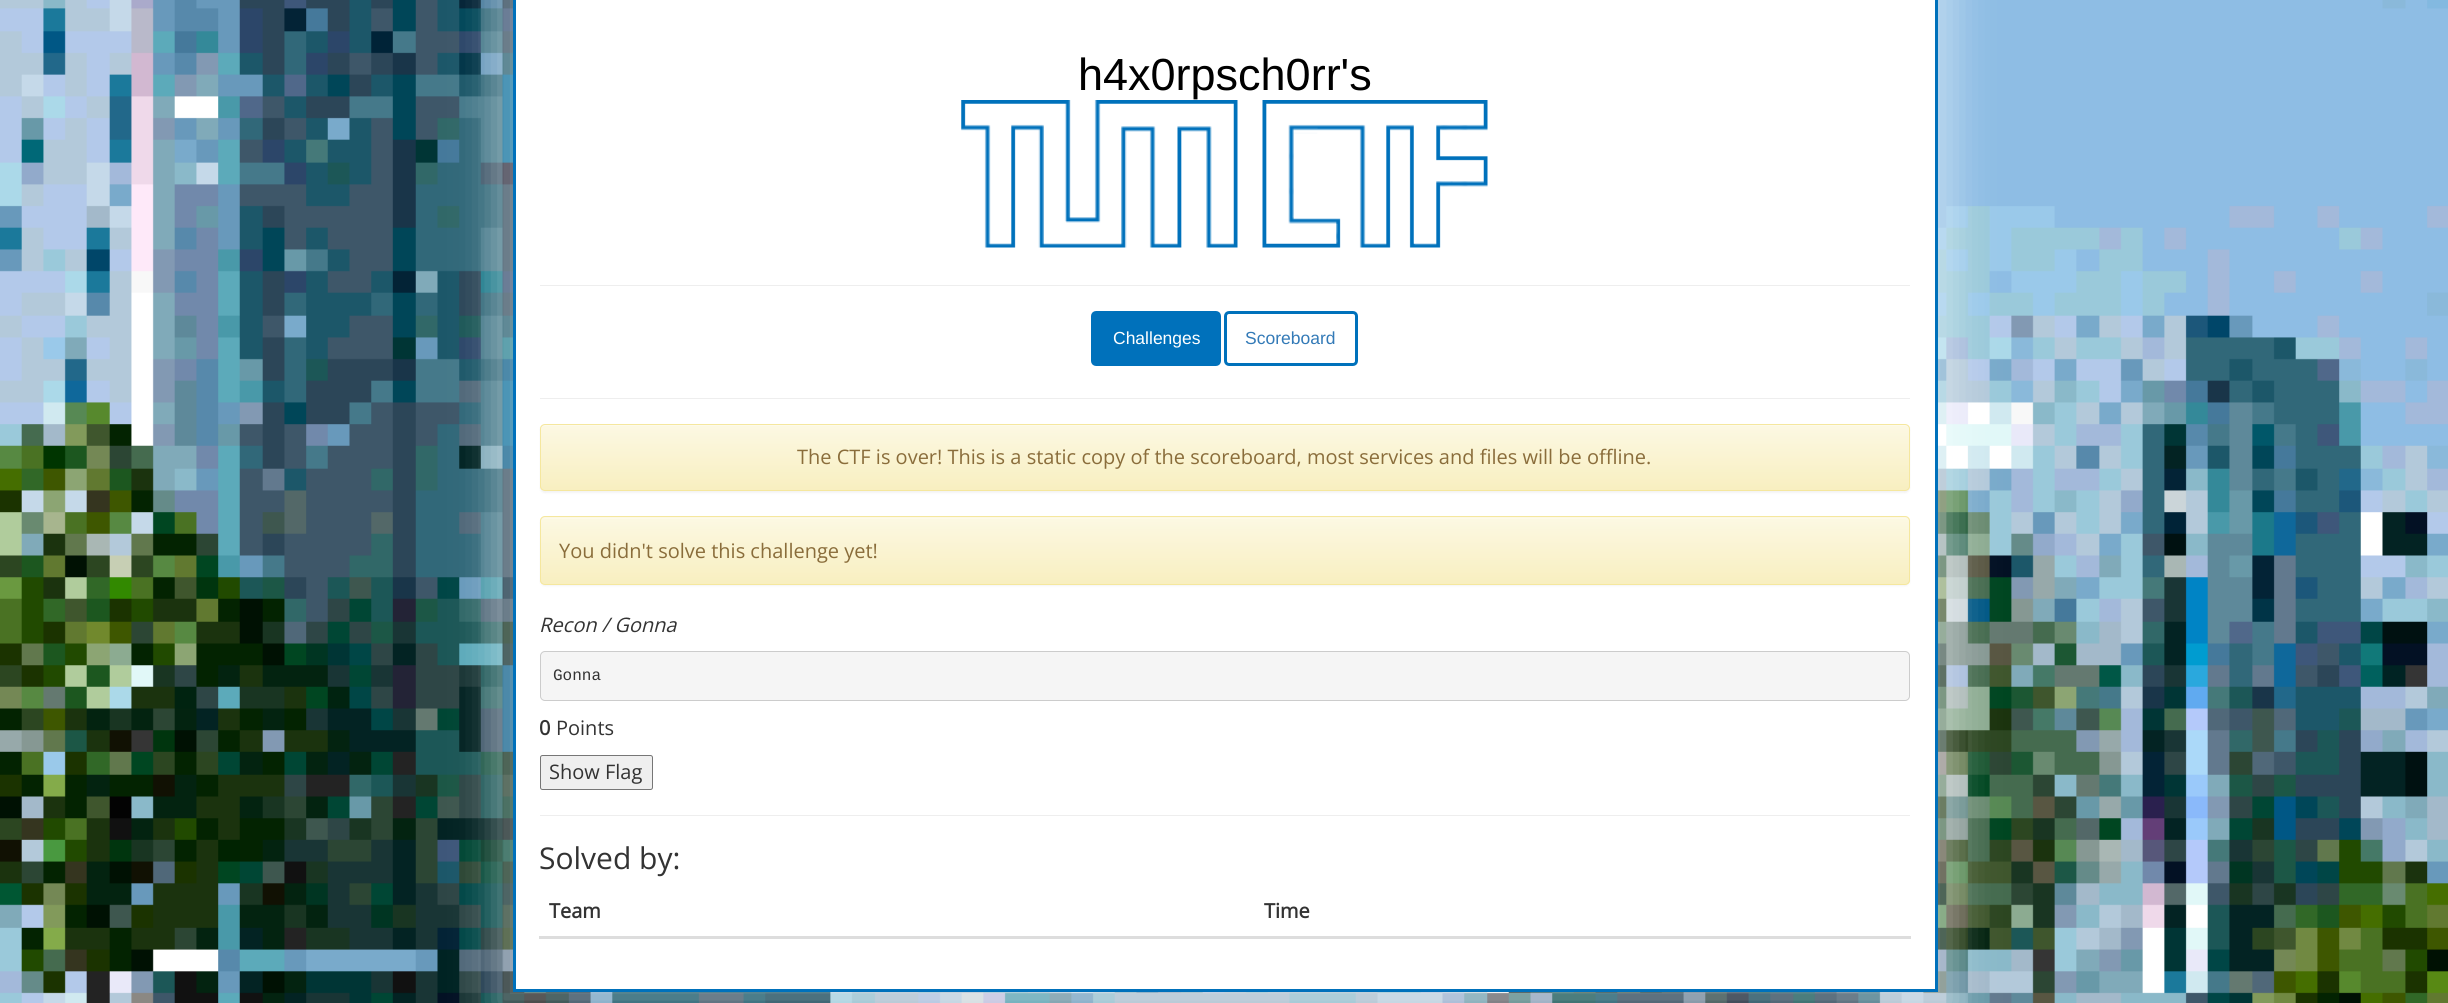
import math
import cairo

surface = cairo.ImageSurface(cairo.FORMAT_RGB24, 2448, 1003)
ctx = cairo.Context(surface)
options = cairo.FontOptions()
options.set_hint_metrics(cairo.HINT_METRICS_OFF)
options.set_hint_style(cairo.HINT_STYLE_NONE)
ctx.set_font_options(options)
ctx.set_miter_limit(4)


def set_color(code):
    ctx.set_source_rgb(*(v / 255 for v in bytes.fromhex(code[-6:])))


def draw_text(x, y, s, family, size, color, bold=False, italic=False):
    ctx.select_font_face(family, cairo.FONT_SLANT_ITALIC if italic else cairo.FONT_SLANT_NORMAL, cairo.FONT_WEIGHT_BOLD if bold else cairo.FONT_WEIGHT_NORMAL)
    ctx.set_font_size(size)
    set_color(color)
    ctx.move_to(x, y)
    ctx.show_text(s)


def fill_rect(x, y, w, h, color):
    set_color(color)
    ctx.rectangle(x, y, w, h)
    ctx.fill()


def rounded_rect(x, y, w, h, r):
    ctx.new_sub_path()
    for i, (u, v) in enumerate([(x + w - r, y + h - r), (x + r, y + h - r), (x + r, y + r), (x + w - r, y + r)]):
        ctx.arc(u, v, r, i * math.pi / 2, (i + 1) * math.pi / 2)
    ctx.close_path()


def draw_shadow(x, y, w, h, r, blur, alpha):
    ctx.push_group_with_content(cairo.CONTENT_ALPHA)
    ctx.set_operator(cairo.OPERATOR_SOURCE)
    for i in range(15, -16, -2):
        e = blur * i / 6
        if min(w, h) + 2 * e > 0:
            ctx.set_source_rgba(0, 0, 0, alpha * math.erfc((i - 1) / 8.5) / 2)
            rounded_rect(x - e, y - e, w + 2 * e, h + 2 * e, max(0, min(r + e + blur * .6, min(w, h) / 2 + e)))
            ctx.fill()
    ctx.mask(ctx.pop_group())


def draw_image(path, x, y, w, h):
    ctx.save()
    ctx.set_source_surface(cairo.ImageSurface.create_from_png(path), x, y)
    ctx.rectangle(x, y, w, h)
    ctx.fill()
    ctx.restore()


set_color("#ffffff")
ctx.paint()
draw_image("assets/img1.png", 0, 0, 2448, 1003)
draw_shadow(494, -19, 1462, 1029, 0, 19, 0.4)
fill_rect(516, 0, 1419, 989, "#ffffff")
fill_rect(1935, 0, 3, 991, "#0071bb")
fill_rect(513, 989, 1425, 3, "#0071bb")
fill_rect(513, 0, 3, 991, "#0071bb")
draw_text(1078, 90, "h4x0rpsch0rr's", "Liberation Sans", 45, "#000000")
draw_image("assets/img2.png", 961, 100, 527, 148)
fill_rect(540, 285, 1370, 1, "#eeeeee")
set_color("#0071bb")
rounded_rect(1092.5, 312.5, 127, 52, 3.5)
ctx.fill_preserve()
ctx.set_line_width(3)
ctx.stroke()
draw_text(1113, 344, "Challenges", "Liberation Sans", 17.5, "#ffffff")
rounded_rect(1225.5, 312.5, 131, 52, 3.5)
set_color("#0071bb")
ctx.stroke()
draw_text(1245, 344, "Scoreboard", "Liberation Sans", 17.5, "#337ab7")
fill_rect(540, 398, 1370, 1, "#eeeeee")
set_color("#000000")
draw_shadow(540, 425, 1370, 68, 5, 1, 0.05)
ctx.save()
rounded_rect(540, 424, 1370, 67, 5)
ctx.clip()
gradient = cairo.LinearGradient(1225, 425, 1225, 490)
gradient.add_color_stop_rgba(0, 0.988, 0.973, 0.89, 1)
gradient.add_color_stop_rgba(1, 0.973, 0.937, 0.753, 1)
ctx.set_source(gradient)
ctx.rectangle(540, 425, 1370, 65)
ctx.fill()
ctx.restore()
set_color("#fdfaea")
ctx.new_path()
ctx.move_to(545, 426)
ctx.line_to(1905, 426)
ctx.curve_to(1907, 426, 1909, 428, 1909, 430)
ctx.line_to(1909, 429)
ctx.curve_to(1909, 427, 1907, 425, 1905, 425)
ctx.line_to(545, 425)
ctx.curve_to(543, 425, 541, 427, 541, 429)
ctx.line_to(541, 430)
ctx.curve_to(541, 428, 543, 426, 545, 426)
ctx.close_path()
ctx.fill()
rounded_rect(540.5, 424.5, 1369, 66, 4.5)
set_color("#f5e79e")
ctx.set_line_width(1)
ctx.stroke()
draw_text(797, 464, "The CTF is over! This is a static copy of the scoreboard, most services and files will be offline.", "Open Sans", 20, "#8a6d3b")
set_color("#000000")
draw_shadow(540, 518, 1370, 68, 5, 1, 0.05)
set_color("#fcf8e3")
rounded_rect(540, 516, 1370, 69, 5)
ctx.fill()
ctx.save()
rounded_rect(540, 516, 1370, 69, 5)
ctx.clip()
gradient = cairo.LinearGradient(1225, 517, 1225, 584)
gradient.add_color_stop_rgba(0, 0.988, 0.973, 0.89, 1)
gradient.add_color_stop_rgba(1, 0.973, 0.937, 0.753, 1)
ctx.set_source(gradient)
ctx.rectangle(540, 518, 1370, 66)
ctx.fill()
ctx.restore()
set_color("#fdfae9")
ctx.new_path()
ctx.move_to(545, 519)
ctx.line_to(1905, 519)
ctx.curve_to(1907, 519, 1909, 520, 1909, 522)
ctx.curve_to(1909, 520, 1907, 518, 1905, 518)
ctx.line_to(545, 518)
ctx.curve_to(543, 518, 541, 520, 541, 522)
ctx.curve_to(541, 520, 543, 519, 545, 519)
ctx.close_path()
ctx.fill()
rounded_rect(540.5, 516.5, 1369, 68, 4.5)
set_color("#f5e79e")
ctx.stroke()
draw_text(559, 558, "You didn't solve this challenge yet!", "Open Sans", 20, "#8a6d3b")
draw_text(539, 632, "Recon / Gonna", "Open Sans", 20, "#333333", italic=True)
set_color("#f5f5f5")
rounded_rect(540.5, 651.5, 1369, 49, 4.5)
ctx.fill_preserve()
set_color("#cccccc")
ctx.stroke()
draw_text(553, 680, "Gonna", "Liberation Mono", 16, "#333333")
draw_text(539, 735, "0", "Open Sans", 20, "#333333", bold=True)
draw_text(556, 735, "Points", "Open Sans", 20, "#333333")
set_color("#efefef")
rounded_rect(540.5, 755.5, 112, 34, 2)
ctx.fill_preserve()
set_color("#767676")
ctx.stroke()
draw_text(549, 779, "Show Flag", "Open Sans", 20, "#333333")
fill_rect(540, 815, 1370, 1, "#eeeeee")
draw_text(539, 869, "Solved by:", "Open Sans", 30, "#333333")
draw_text(549, 918, "Team", "Open Sans", 20, "#333333", bold=True)
fill_rect(539, 936, 1372, 3, "#dddddd")
draw_text(1264, 918, "Time", "Open Sans", 20, "#333333", bold=True)
surface.write_to_png("output.png")
